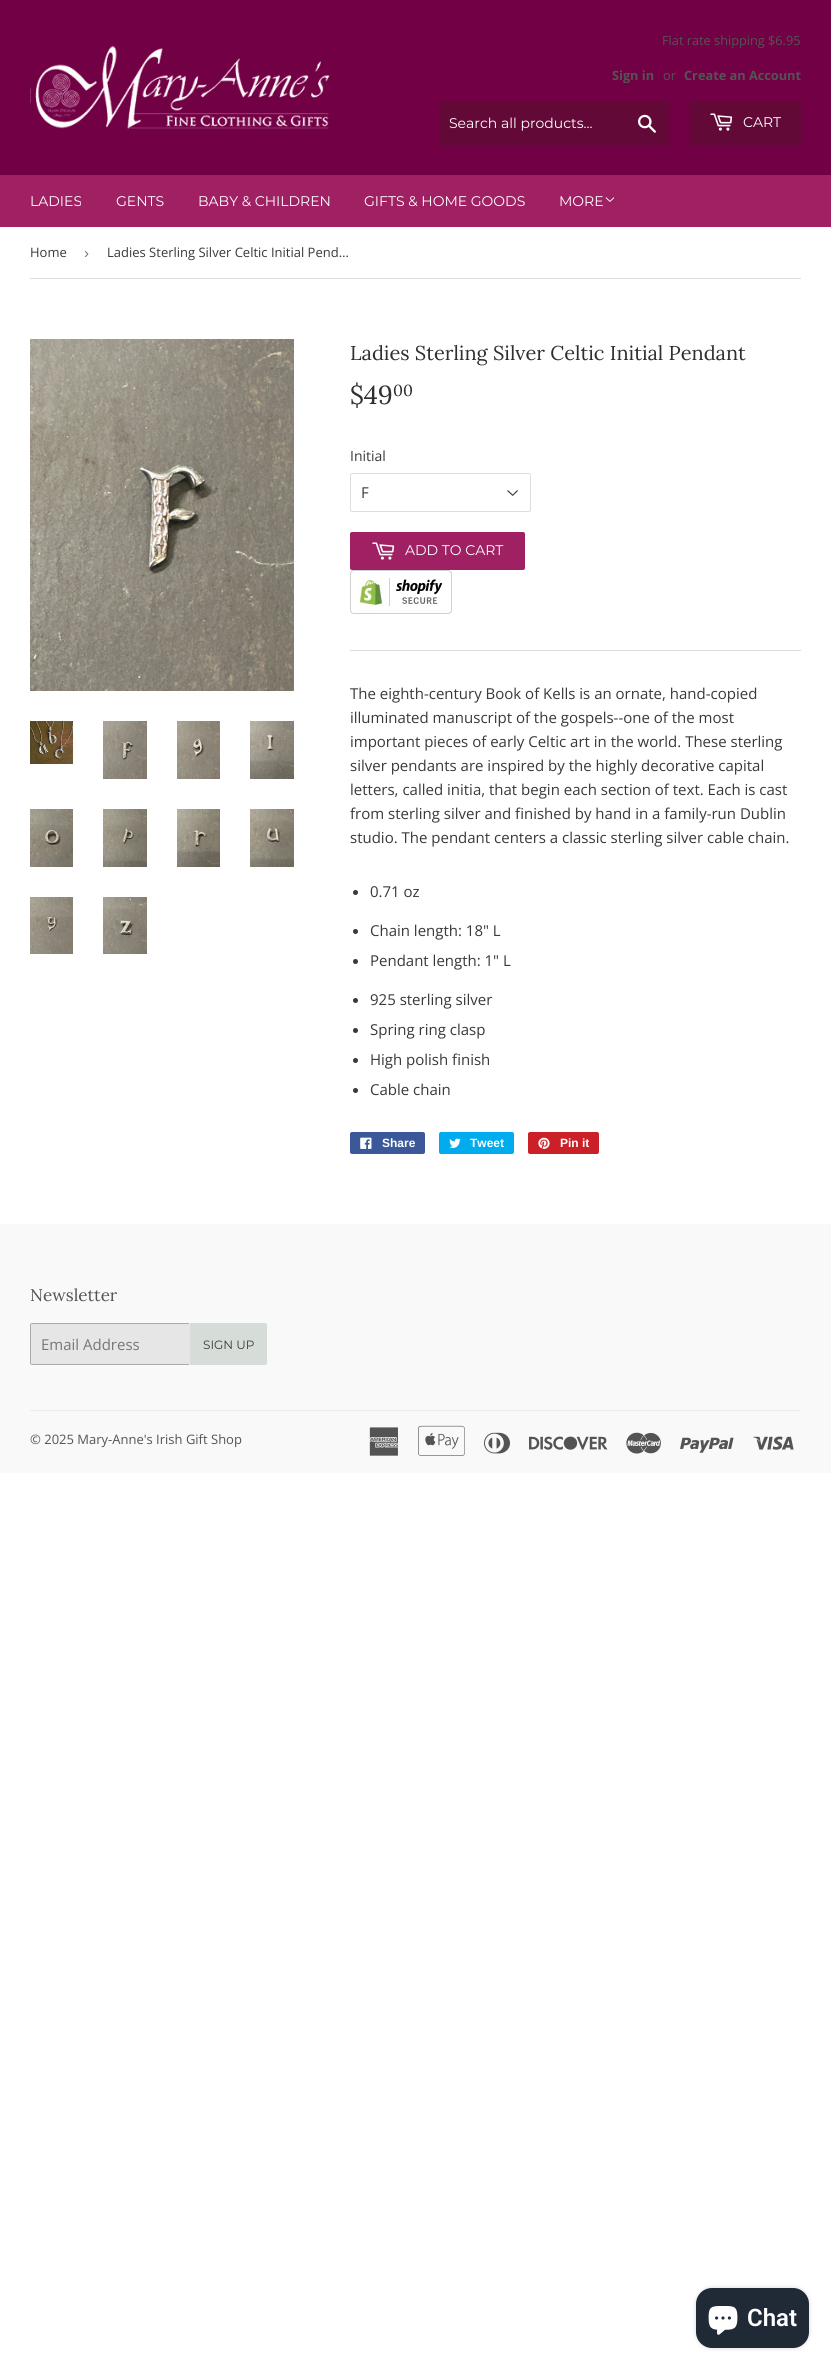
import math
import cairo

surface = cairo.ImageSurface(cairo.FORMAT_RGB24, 831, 2369)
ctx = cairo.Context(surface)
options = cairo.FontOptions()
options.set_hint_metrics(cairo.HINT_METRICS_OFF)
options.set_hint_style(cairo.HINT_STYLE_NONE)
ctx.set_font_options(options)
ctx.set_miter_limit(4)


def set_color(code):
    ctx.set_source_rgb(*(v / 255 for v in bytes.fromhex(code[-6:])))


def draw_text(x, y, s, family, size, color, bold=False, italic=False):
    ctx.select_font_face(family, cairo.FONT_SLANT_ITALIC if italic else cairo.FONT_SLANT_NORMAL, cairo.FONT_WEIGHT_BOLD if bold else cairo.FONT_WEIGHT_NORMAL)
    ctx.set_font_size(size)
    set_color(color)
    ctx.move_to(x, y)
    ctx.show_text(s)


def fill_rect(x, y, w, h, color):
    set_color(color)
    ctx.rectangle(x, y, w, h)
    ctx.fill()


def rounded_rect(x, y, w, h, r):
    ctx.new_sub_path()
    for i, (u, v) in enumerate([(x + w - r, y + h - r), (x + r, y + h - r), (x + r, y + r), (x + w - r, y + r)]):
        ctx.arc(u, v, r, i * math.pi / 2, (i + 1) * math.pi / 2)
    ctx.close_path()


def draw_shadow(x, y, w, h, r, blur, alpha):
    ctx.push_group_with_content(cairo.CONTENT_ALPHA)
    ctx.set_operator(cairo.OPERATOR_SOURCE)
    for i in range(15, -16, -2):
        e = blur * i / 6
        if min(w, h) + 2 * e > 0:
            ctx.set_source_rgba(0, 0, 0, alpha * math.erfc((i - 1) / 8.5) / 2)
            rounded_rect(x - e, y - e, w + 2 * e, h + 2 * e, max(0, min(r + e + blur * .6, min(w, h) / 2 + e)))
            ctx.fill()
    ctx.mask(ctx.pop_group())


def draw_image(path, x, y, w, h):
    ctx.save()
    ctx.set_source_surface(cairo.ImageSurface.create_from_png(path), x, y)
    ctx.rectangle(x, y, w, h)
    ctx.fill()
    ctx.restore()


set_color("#ffffff")
ctx.paint()
fill_rect(0, 0, 831, 175, "#720045")
draw_image("assets/img1.png", 30, 45, 300, 84)
draw_text(662, 45, "Flat rate shipping $6.95", "Open Sans", 12.75, "#545454")
draw_text(612, 80, "Sign in", "Open Sans", 12.75, "#545454", bold=True)
draw_text(663, 80, "or", "Open Sans", 12.75, "#545454")
draw_text(684, 80, "Create an Account", "Open Sans", 12.75, "#545454", bold=True)
set_color("#620938")
rounded_rect(439, 101, 231, 44, 2)
ctx.fill()
draw_text(449, 128, "Search all products...", "Montserrat Thin", 14, "#ffffff")
draw_image("assets/img2.png", 638, 114, 18, 19)
set_color("#620938")
rounded_rect(689, 101, 112, 44, 2)
ctx.fill()
draw_image("assets/img3.png", 710, 113, 23, 18)
draw_text(743, 127, "CART", "Montserrat Thin", 14, "#ffffff")
fill_rect(0, 175, 831, 52, "#9f2063")
draw_text(30, 206, "LADIES", "Montserrat Thin", 14, "#ffffff")
draw_text(116, 206, "GENTS", "Montserrat Thin", 14, "#ffffff")
draw_text(198, 206, "BABY & CHILDREN", "Montserrat Thin", 14, "#ffffff")
draw_text(364, 206, "GIFTS & HOME GOODS", "Montserrat Thin", 14, "#ffffff")
draw_text(559, 206, "MORE", "Montserrat Thin", 14, "#ffffff")
draw_image("assets/img4.png", 605, 197, 10, 5)
fill_rect(30, 278, 771, 1, "#dedede")
draw_text(30, 257, "Home", "Open Sans", 13, "#393939")
draw_text(84, 258, "›", "Liberation Sans", 15, "#767676")
draw_text(107, 257, "Ladies Sterling Silver Celtic Initial Pend…", "Open Sans", 13, "#393939")
draw_image("assets/img5.png", 30, 339, 264, 352)
draw_image("assets/img6.png", 30, 721, 43, 43)
draw_image("assets/img7.png", 103, 721, 44, 58)
draw_image("assets/img8.png", 177, 721, 43, 58)
draw_image("assets/img9.png", 250, 721, 44, 58)
draw_image("assets/img10.png", 30, 809, 43, 58)
draw_image("assets/img11.png", 103, 809, 44, 58)
draw_image("assets/img12.png", 177, 809, 43, 58)
draw_image("assets/img13.png", 250, 809, 44, 58)
draw_image("assets/img14.png", 30, 897, 43, 57)
draw_image("assets/img15.png", 103, 897, 44, 57)
draw_text(350, 360, "Ladies Sterling Silver Celtic Initial Pendant", "Lora", 20, "#2f2f2f")
draw_text(350, 404, "$49", "Lora", 26, "#2f2f2f")
draw_text(393, 396, "00", "Lora", 16, "#2f2f2f")
draw_text(350, 461, "Initial", "Open Sans", 14, "#393939")
draw_image("assets/img16.png", 507, 490, 11, 6)
rounded_rect(350.5, 473.5, 180, 38, 1.5)
set_color("#dedede")
ctx.set_line_width(1)
ctx.stroke()
draw_text(361, 498, "F", "Open Sans", 15, "#393939")
set_color("#9f2063")
rounded_rect(350, 532, 175, 38, 2)
ctx.fill()
draw_image("assets/img17.png", 372, 542, 23, 18)
draw_text(405, 555, "ADD TO CART", "Montserrat Thin", 14, "#ffffff")
draw_image("assets/img18.png", 350, 570, 102, 44)
fill_rect(350, 650, 451, 1, "#dedede")
draw_text(350, 699, "The eighth-century Book of Kells is an ornate, hand-copied", "Open Sans", 15, "#393939")
draw_text(350, 723, "illuminated manuscript of the gospels--one of the most", "Open Sans", 15, "#393939")
draw_text(350, 747, "important pieces of early Celtic art in the world. These sterling", "Open Sans", 15, "#393939")
draw_text(350, 771, "silver pendants are inspired by the highly decorative capital", "Open Sans", 15, "#393939")
draw_text(350, 795, "letters, called initia, that begin each section of text. Each is cast", "Open Sans", 15, "#393939")
draw_text(350, 819, "from sterling silver and finished by hand in a family-run Dublin", "Open Sans", 15, "#393939")
draw_text(350, 843, "studio. The pendant centers a classic sterling silver cable chain.", "Open Sans", 15, "#393939")
ctx.new_path()
ctx.arc(355.5, 892.5, 2.5, 0, 2 * math.pi)
ctx.fill()
draw_text(370, 897, "0.71 oz", "Open Sans", 15, "#393939")
ctx.new_path()
ctx.arc(355.5, 931.5, 2.5, 0, 2 * math.pi)
ctx.fill()
draw_text(370, 936, "Chain length: 18\" L", "Open Sans", 15, "#393939")
ctx.new_path()
ctx.arc(355.5, 961.5, 2.5, 0, 2 * math.pi)
ctx.fill()
draw_text(370, 966, "Pendant length: 1\" L", "Open Sans", 15, "#393939")
ctx.new_path()
ctx.arc(355.5, 1000.5, 2.5, 0, 2 * math.pi)
ctx.fill()
draw_text(370, 1005, "925 sterling silver", "Open Sans", 15, "#393939")
ctx.new_path()
ctx.arc(355.5, 1030.5, 2.5, 0, 2 * math.pi)
ctx.fill()
draw_text(370, 1035, "Spring ring clasp", "Open Sans", 15, "#393939")
ctx.new_path()
ctx.arc(355.5, 1060.5, 2.5, 0, 2 * math.pi)
ctx.fill()
draw_text(370, 1065, "High polish finish", "Open Sans", 15, "#393939")
ctx.new_path()
ctx.arc(355.5, 1090.5, 2.5, 0, 2 * math.pi)
ctx.fill()
draw_text(370, 1095, "Cable chain", "Open Sans", 15, "#393939")
set_color("#3b5998")
rounded_rect(350, 1132, 75, 22, 2)
ctx.fill()
draw_image("assets/img19.png", 360, 1137, 12, 12)
draw_text(382, 1147, "Share", "Liberation Sans", 12, "#ffffff", bold=True)
set_color("#00aced")
rounded_rect(439, 1132, 75, 22, 2)
ctx.fill()
draw_image("assets/img20.png", 449, 1138, 12, 10)
draw_text(470, 1147, "Tweet", "Liberation Sans", 12, "#ffffff", bold=True)
set_color("#cb2027")
rounded_rect(528, 1132, 71, 22, 2)
ctx.fill()
draw_image("assets/img21.png", 538, 1137, 12, 12)
draw_text(560, 1147, "Pin it", "Liberation Sans", 12, "#ffffff", bold=True)
fill_rect(0, 1224, 831, 249, "#f9f9f9")
draw_text(30, 1301, "Newsletter", "Lora", 17, "#545454")
set_color("#e6e6e6")
rounded_rect(30, 1323, 160, 42, 2)
ctx.fill()
fill_rect(31, 1323, 158, 1, "#ababab")
fill_rect(31, 1364, 158, 1, "#ababab")
fill_rect(30, 1324, 1, 40, "#ababab")
draw_text(41, 1350, "Email Address", "Open Sans", 15, "#767676")
set_color("#d6dcd7")
ctx.new_path()
ctx.move_to(190, 1323)
ctx.line_to(265, 1323)
ctx.curve_to(266, 1323, 267, 1324, 267, 1325)
ctx.line_to(267, 1363)
ctx.curve_to(267, 1364, 266, 1365, 265, 1365)
ctx.line_to(190, 1365)
ctx.close_path()
ctx.fill()
draw_text(203, 1349, "SIGN UP", "Montserrat Thin", 12, "#393939")
fill_rect(30, 1410, 771, 1, "#ececec")
draw_text(30, 1444, "© 2025 Mary-Anne's Irish Gift Shop", "Open Sans", 13, "#545454")
draw_image("assets/img22.png", 369, 1427, 30, 29)
draw_image("assets/img23.png", 418, 1425, 47, 31)
draw_image("assets/img24.png", 484, 1432, 26, 22)
draw_image("assets/img25.png", 529, 1436, 79, 14)
draw_image("assets/img26.png", 626, 1432, 35, 22)
draw_image("assets/img27.png", 680, 1437, 54, 16)
draw_image("assets/img28.png", 753, 1436, 41, 14)
set_color("#000000")
draw_shadow(696, 2288, 113, 60, 16, 2.5, 0.15)
set_color("#202a36")
rounded_rect(696, 2288, 113, 60, 16)
ctx.fill()
draw_image("assets/img29.png", 708, 2306, 30, 29)
draw_text(747, 2326, "Chat", "Roboto SemiBold", 24, "#ffffff")
surface.write_to_png("output.png")
